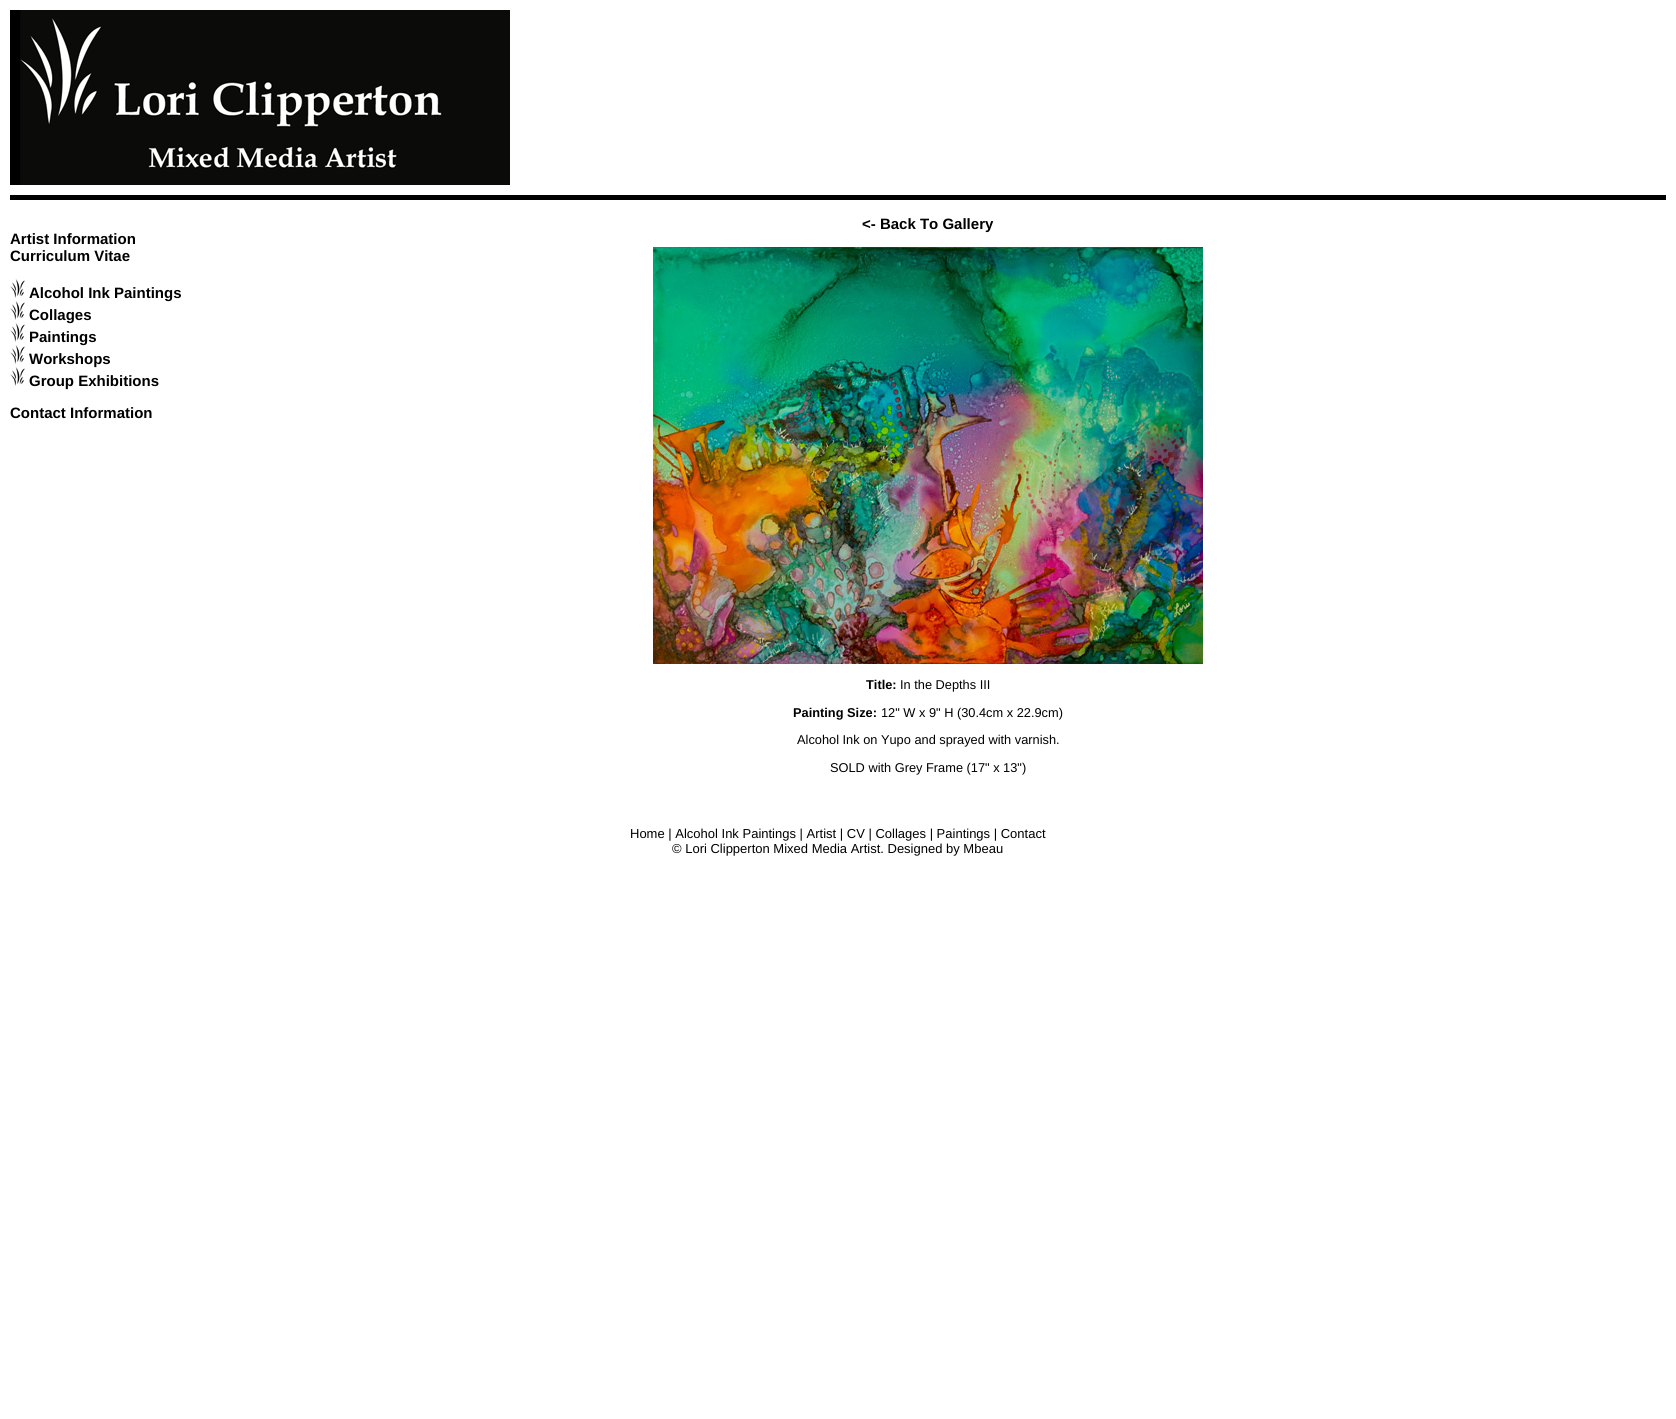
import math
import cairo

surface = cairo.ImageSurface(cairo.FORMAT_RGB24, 1676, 1419)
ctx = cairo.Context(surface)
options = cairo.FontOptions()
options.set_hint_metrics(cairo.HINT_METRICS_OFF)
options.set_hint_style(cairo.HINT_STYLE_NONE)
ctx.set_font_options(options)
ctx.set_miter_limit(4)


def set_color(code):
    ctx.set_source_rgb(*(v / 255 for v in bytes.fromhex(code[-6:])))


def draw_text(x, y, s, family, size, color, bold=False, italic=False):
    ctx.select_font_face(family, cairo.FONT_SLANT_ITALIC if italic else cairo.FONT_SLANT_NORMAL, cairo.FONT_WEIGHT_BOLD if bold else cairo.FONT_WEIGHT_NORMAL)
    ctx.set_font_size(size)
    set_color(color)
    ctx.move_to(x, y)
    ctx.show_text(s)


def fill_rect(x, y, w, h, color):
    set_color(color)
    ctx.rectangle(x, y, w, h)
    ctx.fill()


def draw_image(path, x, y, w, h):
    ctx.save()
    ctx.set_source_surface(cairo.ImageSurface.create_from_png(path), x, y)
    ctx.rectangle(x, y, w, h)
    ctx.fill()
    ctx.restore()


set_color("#ffffff")
ctx.paint()
fill_rect(10, 195, 1656, 5, "#000000")
draw_image("assets/img1.png", 10, 10, 500, 175)
draw_text(10, 244, "Artist Information", "Liberation Sans", 15, "#000000", bold=True)
draw_text(10, 261, "Curriculum Vitae", "Liberation Sans", 15, "#000000", bold=True)
draw_image("assets/img2.png", 10, 279, 15, 19)
draw_text(29, 298, "Alcohol Ink Paintings", "Liberation Sans", 15, "#000000", bold=True)
draw_image("assets/img2.png", 10, 301, 15, 19)
draw_text(29, 320, "Collages", "Liberation Sans", 15, "#000000", bold=True)
draw_image("assets/img2.png", 10, 323, 15, 19)
draw_text(29, 342, "Paintings", "Liberation Sans", 15, "#000000", bold=True)
draw_image("assets/img2.png", 10, 345, 15, 19)
draw_text(29, 364, "Workshops", "Liberation Sans", 15, "#000000", bold=True)
draw_image("assets/img2.png", 10, 367, 15, 19)
draw_text(29, 386, "Group Exhibitions", "Liberation Sans", 15, "#000000", bold=True)
draw_text(10, 418, "Contact Information", "Liberation Sans", 15, "#000000", bold=True)
draw_text(862, 229, "<- Back To Gallery", "Liberation Sans", 15, "#000000", bold=True)
draw_image("assets/img3.png", 653, 247, 550, 417)
draw_text(866, 689, "Title:", "Liberation Sans", 12.8, "#000000", bold=True)
draw_text(900, 689, "In the Depths III", "Liberation Sans", 12.8, "#000000")
draw_text(793, 717, "Painting Size:", "Liberation Sans", 12.8, "#000000", bold=True)
draw_text(881, 717, "12\" W x 9\" H (30.4cm x 22.9cm)", "Liberation Sans", 12.8, "#000000")
draw_text(797, 744, "Alcohol Ink on Yupo and sprayed with varnish.", "Liberation Sans", 12.8, "#000000")
draw_text(830, 772, "SOLD with Grey Frame (17\" x 13\")", "Liberation Sans", 12.8, "#000000")
draw_text(630, 838, "Home | Alcohol Ink Paintings | Artist | CV | Collages | Paintings | Contact", "Liberation Sans", 13, "#000000")
draw_text(672, 853, "© Lori Clipperton Mixed Media Artist. Designed by Mbeau", "Liberation Sans", 13, "#000000")
surface.write_to_png("output.png")
